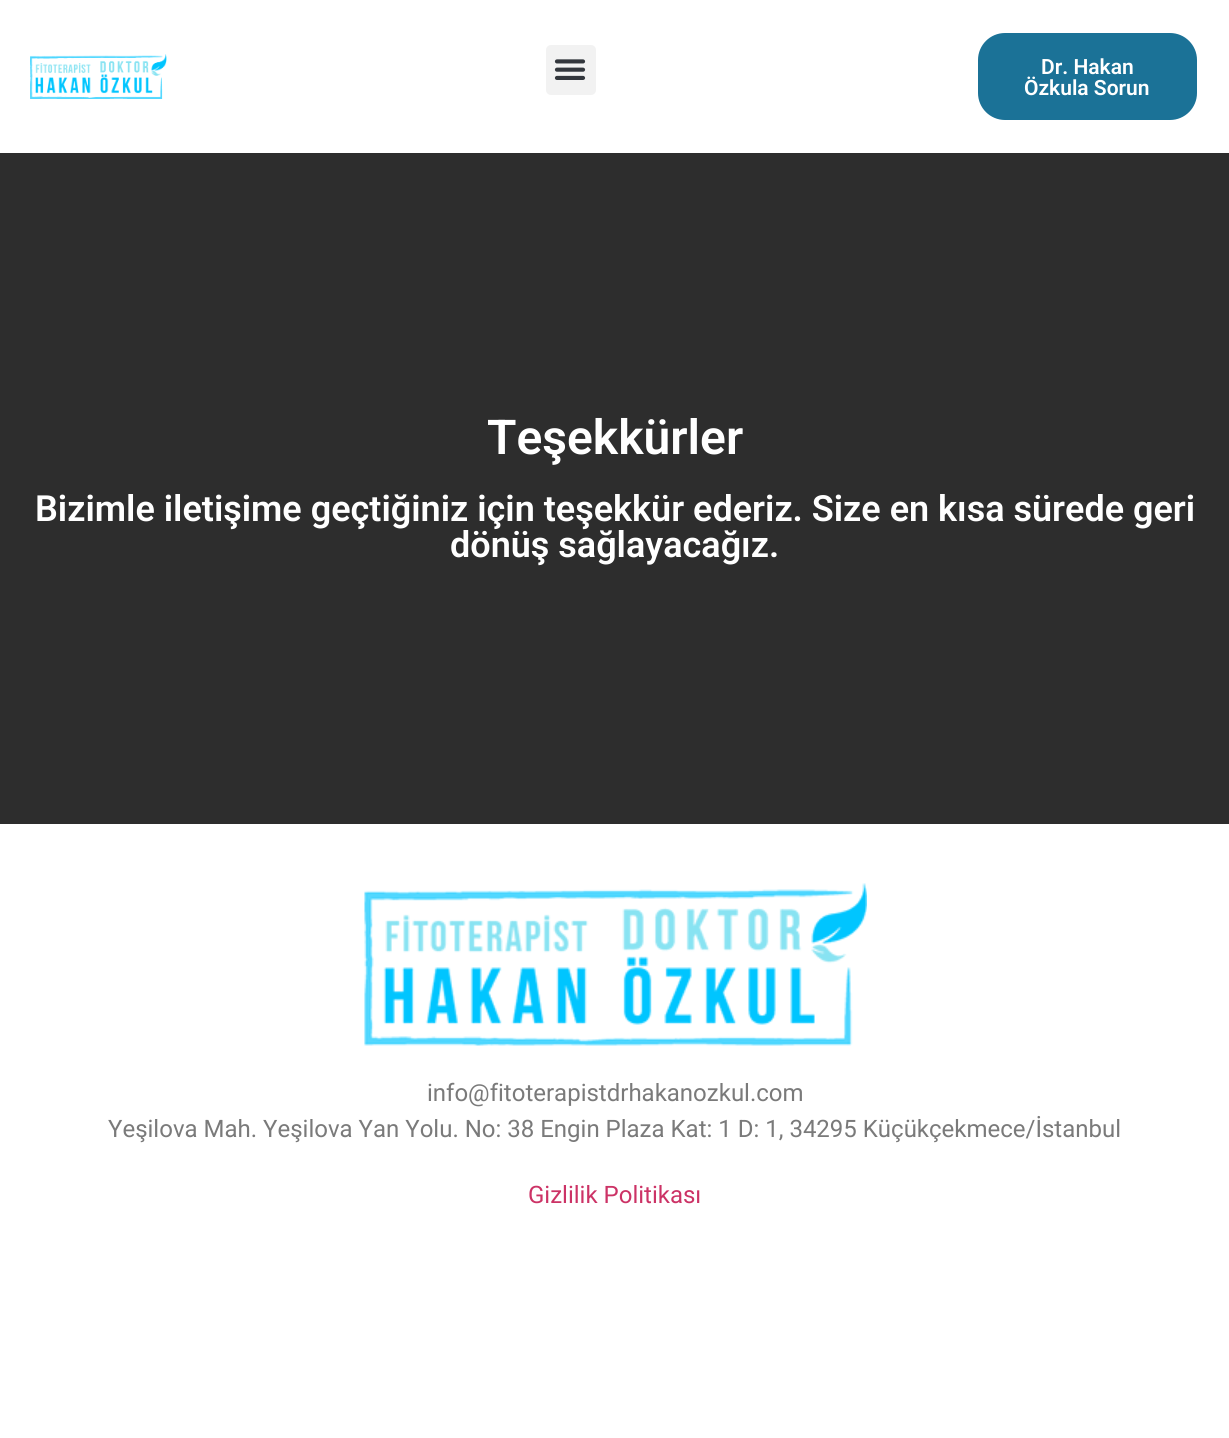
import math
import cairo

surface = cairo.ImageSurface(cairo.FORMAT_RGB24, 1229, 1438)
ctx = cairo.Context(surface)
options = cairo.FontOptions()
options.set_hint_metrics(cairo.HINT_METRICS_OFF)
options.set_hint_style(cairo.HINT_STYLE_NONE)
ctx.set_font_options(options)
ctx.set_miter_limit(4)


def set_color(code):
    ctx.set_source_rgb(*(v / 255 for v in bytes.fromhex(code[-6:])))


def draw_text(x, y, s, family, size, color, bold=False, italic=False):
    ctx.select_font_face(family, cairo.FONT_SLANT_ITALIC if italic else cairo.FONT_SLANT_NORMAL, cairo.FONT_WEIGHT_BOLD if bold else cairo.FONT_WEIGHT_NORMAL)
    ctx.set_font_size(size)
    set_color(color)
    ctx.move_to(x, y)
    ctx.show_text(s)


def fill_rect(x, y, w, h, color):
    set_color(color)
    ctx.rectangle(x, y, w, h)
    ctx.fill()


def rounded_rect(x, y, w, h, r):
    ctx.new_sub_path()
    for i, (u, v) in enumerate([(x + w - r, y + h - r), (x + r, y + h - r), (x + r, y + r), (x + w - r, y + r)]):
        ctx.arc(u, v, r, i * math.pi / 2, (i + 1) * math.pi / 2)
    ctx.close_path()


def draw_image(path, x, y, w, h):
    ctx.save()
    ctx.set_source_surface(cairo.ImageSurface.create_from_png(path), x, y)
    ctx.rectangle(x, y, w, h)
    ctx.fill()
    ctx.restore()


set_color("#ffffff")
ctx.paint()
draw_image("assets/img1.png", 30, 54, 137, 45)
set_color("#f2f2f2")
rounded_rect(546, 45, 50, 50, 5)
ctx.fill()
draw_image("assets/img2.png", 554, 59, 32, 21)
set_color("#1b7297")
rounded_rect(976.5, 31.5, 222, 90, 28.5)
ctx.fill_preserve()
set_color("#ffffff")
ctx.set_line_width(3)
ctx.stroke()
draw_text(1041, 74, "Dr. Hakan", "Roboto SemiBold", 21, "#ffffff")
draw_text(1024, 95, "Özkula Sorun", "Roboto SemiBold", 21, "#ffffff")
fill_rect(0, 153, 1229, 671, "#2d2d2d")
draw_text(487, 454, "Teşekkürler", "Roboto SemiBold", 48, "#ffffff")
draw_text(35, 521, "Bizimle iletişime geçtiğiniz için teşekkür ederiz. Size en kısa sürede geri", "Roboto SemiBold", 36, "#ffffff")
draw_text(450, 557, "dönüş sağlayacağız.", "Roboto SemiBold", 36, "#ffffff")
draw_image("assets/img3.png", 364, 883, 503, 163)
draw_text(427, 1101, "info@fitoterapistdrhakanozkul.com", "Roboto", 24, "#7a7a7a")
draw_text(108, 1137, "Yeşilova Mah. Yeşilova Yan Yolu. No: 38 Engin Plaza Kat: 1 D: 1, 34295 Küçükçekmece/İstanbul", "Roboto", 24, "#7a7a7a")
draw_text(528, 1203, "Gizlilik Politikası", "Roboto", 24, "#cc3366")
surface.write_to_png("output.png")
